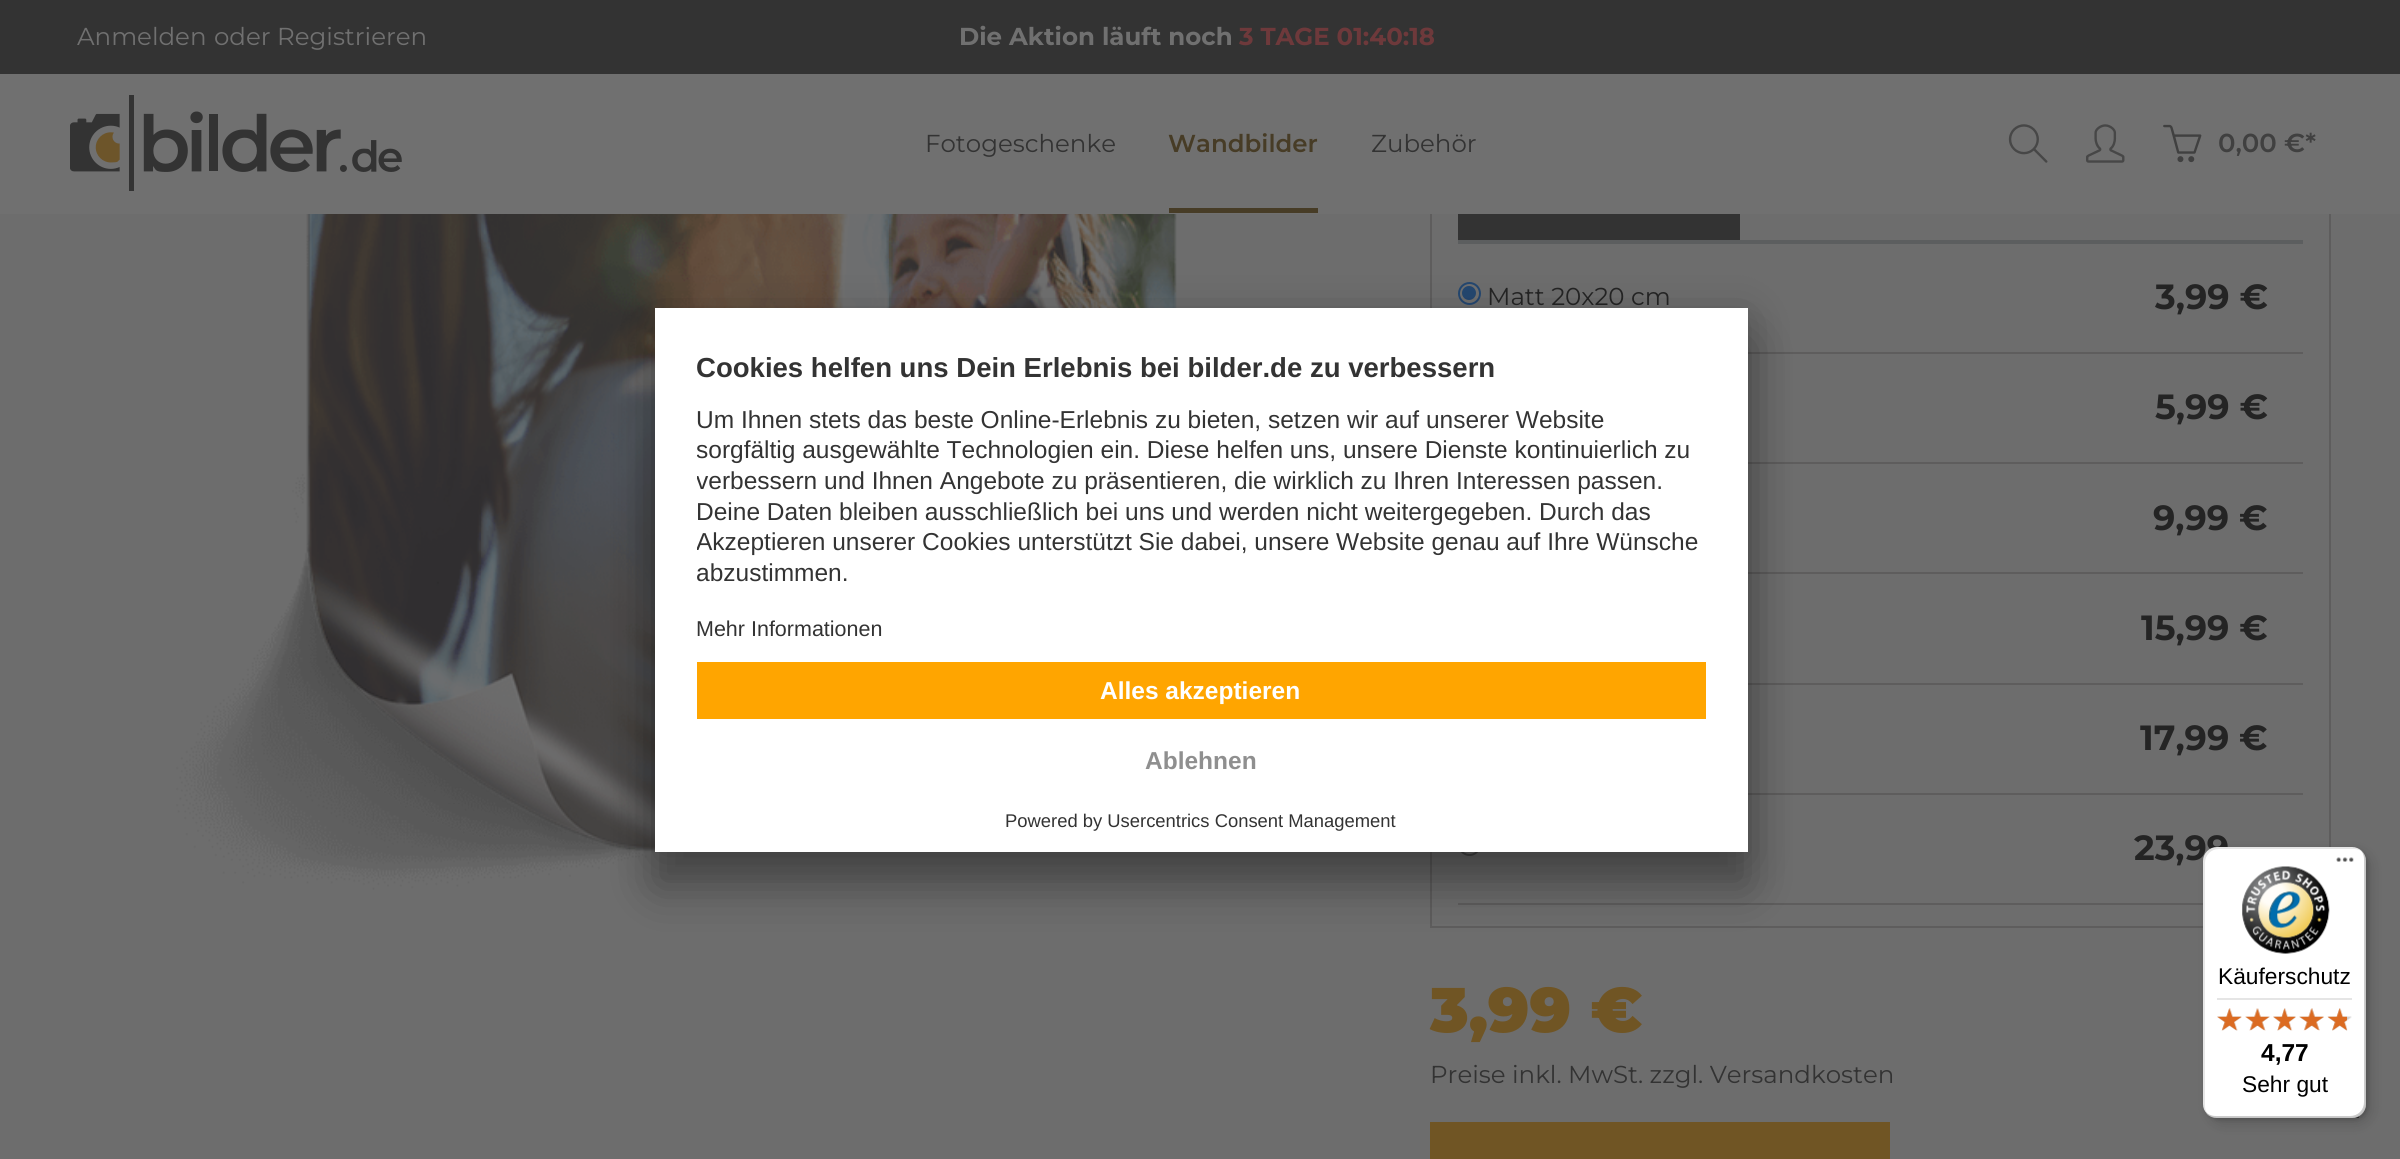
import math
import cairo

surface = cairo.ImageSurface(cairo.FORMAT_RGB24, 2400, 1159)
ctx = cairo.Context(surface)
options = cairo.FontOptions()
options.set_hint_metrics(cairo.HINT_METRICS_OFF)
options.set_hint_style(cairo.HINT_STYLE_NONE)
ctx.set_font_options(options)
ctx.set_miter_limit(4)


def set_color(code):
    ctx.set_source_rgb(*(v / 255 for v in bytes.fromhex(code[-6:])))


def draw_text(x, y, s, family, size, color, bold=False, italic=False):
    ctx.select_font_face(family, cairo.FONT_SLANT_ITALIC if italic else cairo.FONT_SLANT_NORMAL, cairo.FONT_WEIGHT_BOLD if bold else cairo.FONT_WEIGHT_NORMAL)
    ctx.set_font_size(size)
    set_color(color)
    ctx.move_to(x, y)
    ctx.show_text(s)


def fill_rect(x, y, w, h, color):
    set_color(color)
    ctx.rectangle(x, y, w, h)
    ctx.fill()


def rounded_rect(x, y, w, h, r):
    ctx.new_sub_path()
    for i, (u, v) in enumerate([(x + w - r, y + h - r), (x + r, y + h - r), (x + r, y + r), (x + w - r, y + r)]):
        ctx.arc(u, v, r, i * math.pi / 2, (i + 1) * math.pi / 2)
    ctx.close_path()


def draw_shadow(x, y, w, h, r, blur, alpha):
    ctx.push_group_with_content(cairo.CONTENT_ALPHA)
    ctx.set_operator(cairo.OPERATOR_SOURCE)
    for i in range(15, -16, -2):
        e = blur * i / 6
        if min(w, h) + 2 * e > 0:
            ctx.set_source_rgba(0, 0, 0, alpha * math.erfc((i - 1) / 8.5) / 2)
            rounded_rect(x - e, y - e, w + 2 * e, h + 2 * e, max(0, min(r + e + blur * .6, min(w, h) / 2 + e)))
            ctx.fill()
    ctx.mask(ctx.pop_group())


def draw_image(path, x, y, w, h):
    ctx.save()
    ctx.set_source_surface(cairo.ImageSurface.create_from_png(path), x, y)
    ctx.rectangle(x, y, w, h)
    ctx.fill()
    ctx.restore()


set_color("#6d6d6d")
ctx.paint()
fill_rect(0, 0, 2400, 74, "#333333")
draw_text(77, 45, "Anmelden", "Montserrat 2 Thin", 24.5, "#707070")
draw_text(214, 45, "oder", "Montserrat 2 Thin", 24.5, "#707070")
draw_text(277, 45, "Registrieren", "Montserrat 2 Thin", 24.5, "#707070")
draw_text(959, 45, "Die Aktion läuft noch", "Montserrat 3 Thin", 24.5, "#707070")
draw_text(1239, 45, "3 TAGE 01:40:18", "Montserrat 3 Thin", 24.5, "#6e393b")
ctx.rectangle(1431, 141, 899, 786)
set_color("#5e5d5d")
ctx.stroke()
fill_rect(0, 74, 2400, 140, "#707070")
draw_image("assets/img1.png", 70, 95, 332, 96)
draw_text(925, 152, "Fotogeschenke", "Montserrat 2 Thin", 24.5, "#333333")
draw_text(1168, 152, "Wandbilder", "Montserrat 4 Thin", 24.5, "#473c26")
fill_rect(1169, 208, 149, 5, "#473c26")
draw_text(1371, 152, "Zubehör", "Montserrat 2 Thin", 24.5, "#333333")
draw_image("assets/img2.png", 2008, 124, 40, 39)
draw_image("assets/img3.png", 2086, 124, 39, 39)
draw_image("assets/img4.png", 2163, 124, 39, 39)
draw_text(2218, 152, "0,00 €*", "Montserrat 4 Thin", 26, "#404040")
draw_image("assets/img5.png", 176, 214, 1001, 676)
fill_rect(1458, 214, 282, 26, "#333333")
fill_rect(1458, 240, 845, 4, "#5c5e5f")
fill_rect(1748, 352, 555, 2, "#5e5d5d")
set_color("#707070")
ctx.arc(1469.5, 293.5, 10.5, 0, 2 * math.pi)
ctx.fill_preserve()
set_color("#244770")
ctx.stroke()
ctx.arc(1469, 293, 7, 0, 2 * math.pi)
ctx.fill()
draw_text(1487, 305, "Matt 20x20 cm", "Montserrat 2 Thin", 24.5, "#242424")
draw_text(2155, 309, "3,99 €", "Montserrat 3 Thin", 35, "#242424")
fill_rect(1748, 462, 555, 2, "#5e5d5d")
draw_text(2155, 419, "5,99 €", "Montserrat 3 Thin", 35, "#242424")
fill_rect(1748, 572, 555, 2, "#5e5d5d")
draw_text(2153, 530, "9,99 €", "Montserrat 3 Thin", 35, "#242424")
fill_rect(1748, 683, 555, 2, "#5e5d5d")
draw_text(2141, 640, "15,99 €", "Montserrat 3 Thin", 35, "#242424")
fill_rect(1748, 793, 555, 2, "#5e5d5d")
draw_text(2140, 750, "17,99 €", "Montserrat 3 Thin", 35, "#242424")
fill_rect(1458, 903, 745, 2, "#5e5d5d")
set_color("#707070")
ctx.new_path()
ctx.arc(1469.5, 844.5, 10.5, 0, 2 * math.pi)
ctx.fill_preserve()
set_color("#474747")
ctx.stroke()
draw_text(2134, 860, "23,99", "Montserrat 3 Thin", 35, "#242424")
draw_text(1430, 1032, "3,99 €", "Montserrat Thin", 63, "#705524")
draw_text(1430, 1083, "Preise inkl. MwSt. zzgl. Versandkosten", "Montserrat 2 Thin", 24.5, "#333333")
fill_rect(1430, 1122, 460, 37, "#705524")
set_color("#000000")
draw_shadow(655, 343, 1093, 544, 0, 24.5, 0.3)
draw_shadow(655, 317, 1093, 544, 0, 23, 0.22)
fill_rect(655, 308, 1093, 544, "#ffffff")
draw_text(696, 377, "Cookies helfen uns Dein Erlebnis bei bilder.de zu verbessern", "Liberation Sans", 27.55, "#333333", bold=True)
draw_text(696, 428, "Um Ihnen stets das beste Online-Erlebnis zu bieten, setzen wir auf unserer Website", "Liberation Sans", 24.5, "#333333")
ctx.save()
ctx.rectangle(697, 397, 1009, 198)
ctx.clip()
draw_text(696, 458, "sorgfältig ausgewählte Technologien ein. Diese helfen uns, unsere Dienste kontinuierlich zu", "Liberation Sans", 24.5, "#333333")
draw_text(696, 489, "verbessern und Ihnen Angebote zu präsentieren, die wirklich zu Ihren Interessen passen.", "Liberation Sans", 24.5, "#333333")
ctx.restore()
draw_text(696, 520, "Deine Daten bleiben ausschließlich bei uns und werden nicht weitergegeben. Durch das", "Liberation Sans", 24.5, "#333333")
ctx.save()
ctx.rectangle(697, 397, 1009, 198)
ctx.clip()
draw_text(696, 550, "Akzeptieren unserer Cookies unterstützt Sie dabei, unsere Website genau auf Ihre Wünsche", "Liberation Sans", 24.5, "#333333")
draw_text(696, 581, "abzustimmen.", "Liberation Sans", 24.5, "#333333")
ctx.restore()
draw_text(696, 636, "Mehr Informationen", "Liberation Sans", 21.5, "#333333")
fill_rect(697, 662, 1009, 57, "#ffa500")
draw_text(1100, 699, "Alles akzeptieren", "Liberation Sans", 24.5, "#ffffff", bold=True)
draw_text(1145, 769, "Ablehnen", "Liberation Sans", 24.5, "#8f8f8f", bold=True)
draw_text(1005, 827, "Powered by Usercentrics Consent Management", "Liberation Sans", 18.4, "#333333")
fill_rect(2352, 1116, 7, 2, "#333333")
set_color("#000000")
draw_shadow(2209, 852, 162, 272, 14, 7, 0.15)
draw_shadow(2205, 849, 163, 271, 14, 2, 0.15)
set_color("#ffffff")
rounded_rect(2203, 847, 163, 271, 14)
ctx.fill()
ctx.set_source_rgba(0, 0, 0, 0.1)
ctx.new_path()
ctx.move_to(2219, 849)
ctx.line_to(2354, 849)
ctx.curve_to(2357, 849, 2361, 850, 2363, 853)
ctx.curve_to(2361, 849, 2357, 847, 2352, 847)
ctx.line_to(2217, 847)
ctx.curve_to(2209, 847, 2203, 853, 2203, 861)
ctx.line_to(2203, 1104)
ctx.curve_to(2203, 1108, 2205, 1112, 2208, 1114)
ctx.curve_to(2206, 1112, 2205, 1109, 2205, 1106)
ctx.line_to(2205, 863)
ctx.curve_to(2205, 855, 2211, 849, 2219, 849)
ctx.close_path()
ctx.fill()
ctx.set_source_rgba(0, 0, 0, 0.2)
ctx.new_path()
ctx.move_to(2204, 1110)
ctx.curve_to(2207, 1115, 2211, 1118, 2217, 1118)
ctx.line_to(2352, 1118)
ctx.curve_to(2360, 1118, 2366, 1112, 2366, 1104)
ctx.line_to(2366, 861)
ctx.curve_to(2366, 856, 2364, 852, 2360, 850)
ctx.curve_to(2363, 852, 2364, 856, 2364, 859)
ctx.line_to(2364, 1102)
ctx.curve_to(2364, 1110, 2358, 1116, 2350, 1116)
ctx.line_to(2216, 1116)
ctx.curve_to(2211, 1116, 2207, 1114, 2204, 1110)
ctx.close_path()
ctx.fill()
ctx.set_source_rgba(0.196, 0.196, 0.196, 0.2)
ctx.new_path()
ctx.move_to(2208, 1114)
ctx.curve_to(2210, 1117, 2213, 1118, 2217, 1118)
ctx.line_to(2352, 1118)
ctx.curve_to(2360, 1118, 2366, 1112, 2366, 1104)
ctx.line_to(2366, 861)
ctx.curve_to(2366, 857, 2365, 854, 2362, 852)
ctx.curve_to(2364, 854, 2365, 857, 2365, 860)
ctx.line_to(2365, 1103)
ctx.curve_to(2365, 1111, 2359, 1117, 2351, 1117)
ctx.line_to(2216, 1117)
ctx.curve_to(2213, 1117, 2210, 1116, 2208, 1114)
ctx.close_path()
ctx.fill()
ctx.set_source_rgba(1, 1, 1, 0.3)
ctx.new_path()
ctx.move_to(2206, 1113)
ctx.curve_to(2208, 1116, 2212, 1118, 2217, 1118)
ctx.line_to(2352, 1118)
ctx.curve_to(2360, 1118, 2366, 1112, 2366, 1104)
ctx.line_to(2366, 861)
ctx.curve_to(2366, 857, 2365, 854, 2362, 852)
ctx.curve_to(2364, 854, 2365, 857, 2365, 860)
ctx.line_to(2365, 1103)
ctx.curve_to(2365, 1111, 2359, 1117, 2351, 1117)
ctx.line_to(2216, 1117)
ctx.curve_to(2212, 1117, 2209, 1115, 2206, 1113)
ctx.close_path()
ctx.fill()
draw_image("assets/img6.png", 2336, 857, 18, 5)
draw_image("assets/img7.png", 2242, 866, 88, 88)
draw_text(2218, 984, "Käuferschutz", "Liberation Sans", 22.75, "#000000")
fill_rect(2217, 998, 135, 2, "#e5e5e5")
draw_image("assets/img8.png", 2217, 1008, 25, 23)
draw_image("assets/img9.png", 2245, 1008, 25, 23)
draw_image("assets/img10.png", 2273, 1008, 23, 23)
draw_image("assets/img11.png", 2299, 1008, 25, 22)
draw_image("assets/img12.png", 2328, 1008, 24, 23)
draw_image("assets/img13.png", 2217, 1008, 25, 23)
draw_image("assets/img14.png", 2245, 1008, 25, 23)
draw_image("assets/img15.png", 2273, 1008, 23, 23)
draw_image("assets/img16.png", 2299, 1008, 25, 23)
draw_image("assets/img17.png", 2327, 1008, 20, 23)
draw_text(2261, 1061, "4,77", "Liberation Sans", 24.5, "#000000", bold=True)
draw_text(2242, 1092, "Sehr gut", "Liberation Sans", 22.75, "#000000")
surface.write_to_png("output.png")
